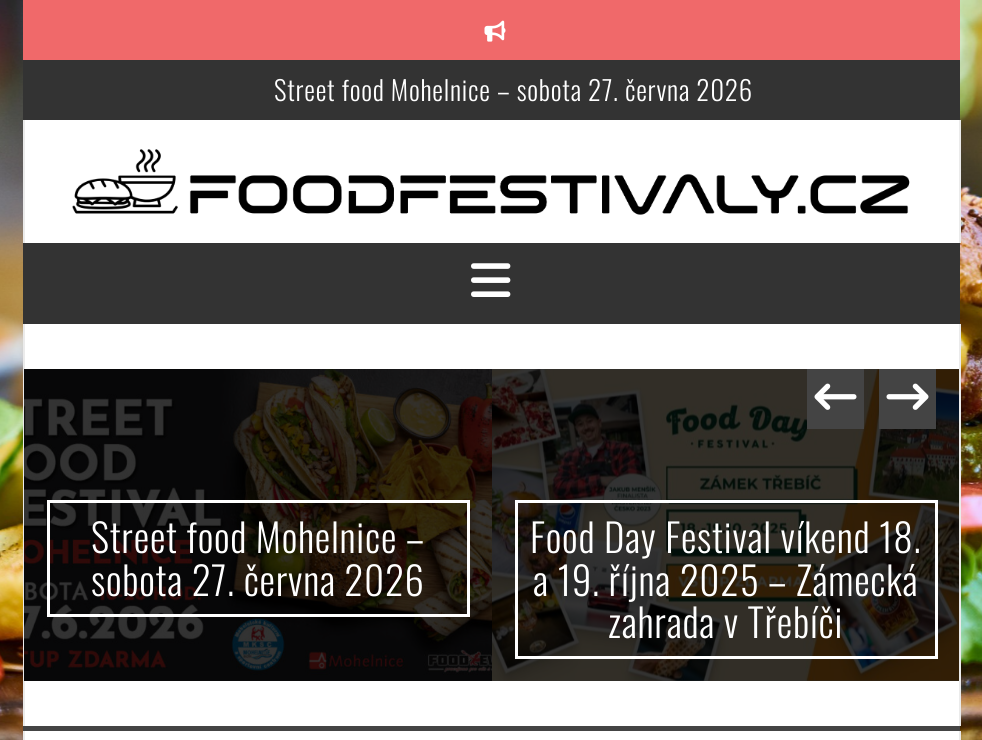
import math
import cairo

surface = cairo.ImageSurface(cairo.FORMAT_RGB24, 982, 740)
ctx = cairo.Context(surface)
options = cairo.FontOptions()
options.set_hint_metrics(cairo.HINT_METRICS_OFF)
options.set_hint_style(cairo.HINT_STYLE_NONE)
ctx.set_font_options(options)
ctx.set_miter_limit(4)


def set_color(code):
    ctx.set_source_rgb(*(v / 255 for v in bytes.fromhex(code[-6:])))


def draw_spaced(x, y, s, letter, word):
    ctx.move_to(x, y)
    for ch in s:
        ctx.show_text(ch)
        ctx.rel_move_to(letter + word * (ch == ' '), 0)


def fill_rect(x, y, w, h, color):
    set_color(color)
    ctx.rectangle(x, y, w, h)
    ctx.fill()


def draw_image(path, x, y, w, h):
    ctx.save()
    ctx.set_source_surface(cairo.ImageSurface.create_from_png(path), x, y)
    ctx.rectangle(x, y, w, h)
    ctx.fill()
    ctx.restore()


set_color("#ffffff")
ctx.paint()
draw_image("assets/img1.png", 0, 0, 982, 740)
fill_rect(23, 0, 937, 60, "#f0696a")
draw_image("assets/img2.png", 484, 20, 22, 22)
fill_rect(23, 60, 937, 60, "#333333")
ctx.select_font_face("Oswald Light")
ctx.set_font_size(27)
set_color("#ffffff")
draw_spaced(274, 101, "Street food Mohelnice – sobota 27. června 2026", 0.75, 0)
fill_rect(25, 120, 934, 123, "#ffffff")
fill_rect(959, 120, 2, 123, "#ebebeb")
fill_rect(23, 120, 2, 123, "#ebebeb")
draw_image("assets/img3.png", 72, 149, 838, 66)
fill_rect(23, 243, 937, 81, "#333333")
draw_image("assets/img4.png", 471, 263, 40, 34)
fill_rect(23, 726, 937, 5, "#444444")
fill_rect(25, 324, 934, 402, "#ffffff")
fill_rect(959, 324, 2, 402, "#ebebeb")
fill_rect(23, 324, 2, 402, "#ebebeb")
draw_image("assets/img8.png", 492, 369, 467, 312)
ctx.set_source_rgba(0, 0, 0, 0.8)
ctx.rectangle(492, 369, 467, 312)
ctx.fill()
fill_rect(807, 369, 57, 60, "#444444")
draw_image("assets/img5.png", 814, 383, 43, 27)
fill_rect(879, 369, 57, 60, "#444444")
draw_image("assets/img6.png", 886, 383, 43, 27)
draw_image("assets/img7.png", 24, 369, 468, 312)
ctx.set_source_rgba(0, 0, 0, 0.8)
ctx.rectangle(24, 369, 468, 312)
ctx.fill()
ctx.rectangle(48.5, 501.5, 420, 114)
set_color("#ffffff")
ctx.set_line_width(3)
ctx.stroke()
ctx.set_font_size(39)
draw_spaced(91, 553, "Street food Mohelnice –", 0.75, 0)
draw_spaced(91, 596, "sobota 27. června 2026", 0.75, 0)
ctx.rectangle(516.5, 501.5, 420, 156)
ctx.stroke()
draw_spaced(530, 553, "Food Day Festival víkend 18.", 0.75, 0)
draw_spaced(533, 596, "a 19. října 2025 – Zámecká", 0.75, 0)
draw_spaced(608, 638, "zahrada v Třebíči", 0.75, 0)
fill_rect(25, 731, 934, 9, "#ffffff")
fill_rect(959, 731, 2, 9, "#ebebeb")
fill_rect(23, 731, 2, 9, "#ebebeb")
surface.write_to_png("output.png")
